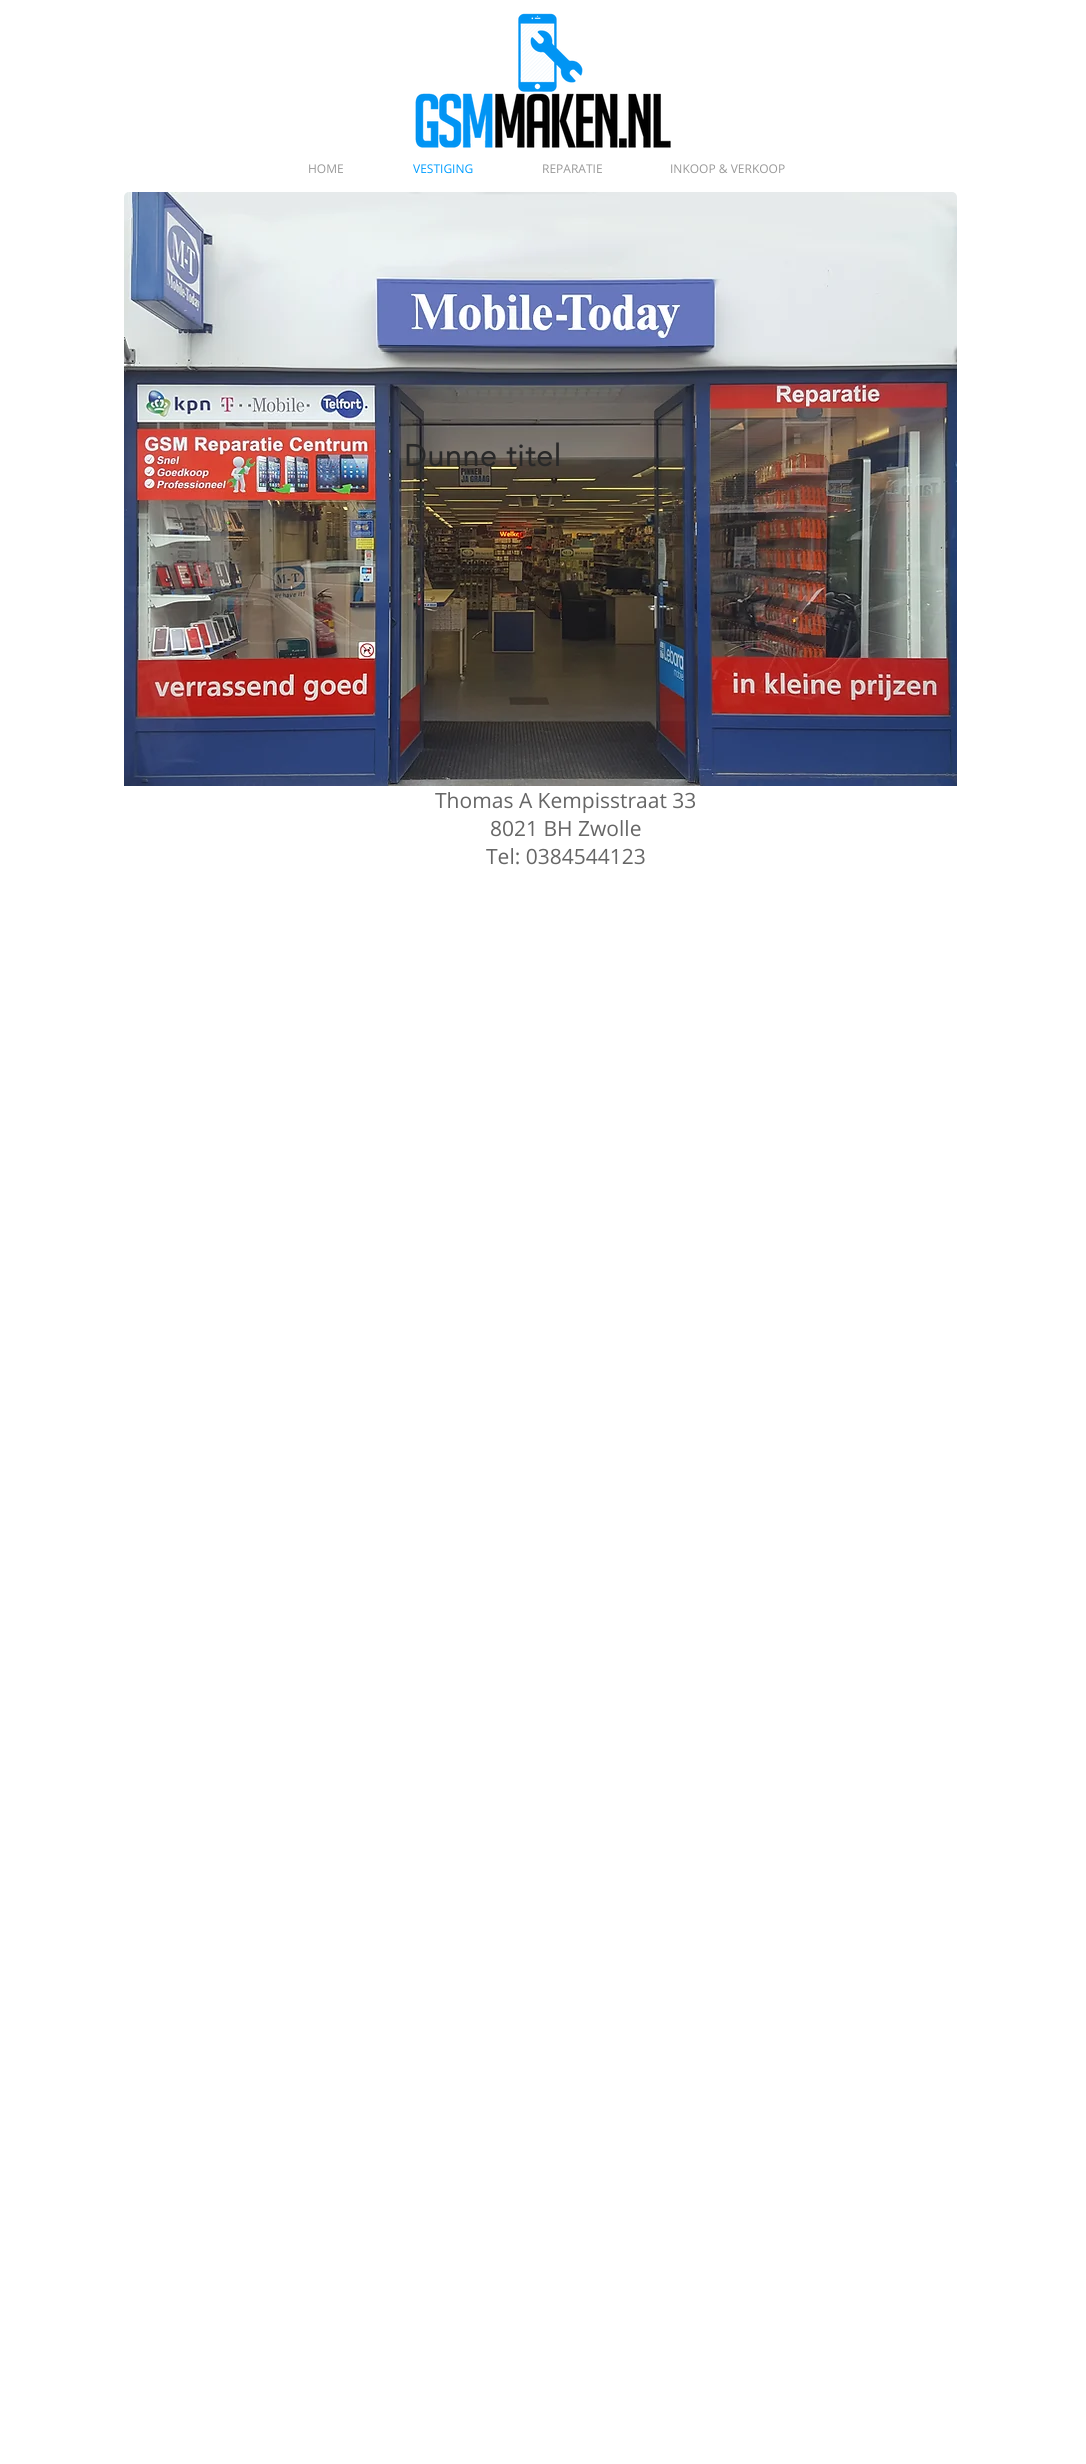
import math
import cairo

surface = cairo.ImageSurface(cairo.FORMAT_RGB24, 1086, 2464)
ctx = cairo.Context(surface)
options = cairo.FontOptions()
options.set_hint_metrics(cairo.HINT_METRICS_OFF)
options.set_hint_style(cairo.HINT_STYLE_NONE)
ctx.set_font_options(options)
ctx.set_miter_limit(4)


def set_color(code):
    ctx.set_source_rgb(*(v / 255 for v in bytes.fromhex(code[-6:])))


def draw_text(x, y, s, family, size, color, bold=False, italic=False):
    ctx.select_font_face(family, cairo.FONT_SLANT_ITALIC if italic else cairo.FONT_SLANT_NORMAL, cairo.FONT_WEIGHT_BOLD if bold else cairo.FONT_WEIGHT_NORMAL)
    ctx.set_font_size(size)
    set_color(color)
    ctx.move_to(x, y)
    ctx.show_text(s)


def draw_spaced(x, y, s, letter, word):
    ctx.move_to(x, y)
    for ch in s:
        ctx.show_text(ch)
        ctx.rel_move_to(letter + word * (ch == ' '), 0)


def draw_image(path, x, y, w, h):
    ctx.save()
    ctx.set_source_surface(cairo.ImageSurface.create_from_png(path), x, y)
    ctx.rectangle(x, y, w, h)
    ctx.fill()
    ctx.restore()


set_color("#ffffff")
ctx.paint()
draw_image("assets/img1.png", 415, 13, 256, 135)
draw_text(308, 173, "HOME", "Open Sans", 12, "#999999")
draw_text(413, 173, "VESTIGING", "Open Sans", 12, "#009dff")
draw_text(542, 173, "REPARATIE", "Open Sans", 12, "#999999")
draw_text(670, 173, "INKOOP & VERKOOP", "Open Sans", 12, "#999999")
draw_image("assets/img2.png", 124, 192, 833, 594)
ctx.select_font_face("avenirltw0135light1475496", cairo.FONT_SLANT_NORMAL, cairo.FONT_WEIGHT_BOLD)
ctx.set_font_size(30)
set_color("#292929")
draw_spaced(404, 466, "Dunne titel", 0.9, 0)
draw_text(435, 808, "Thomas A Kempisstraat 33", "Open Sans", 21, "#666666")
draw_text(490, 836, "8021 BH Zwolle", "Open Sans", 21, "#666666")
draw_text(486, 864, "Tel: 0384544123", "Open Sans", 21, "#666666")
surface.write_to_png("output.png")
